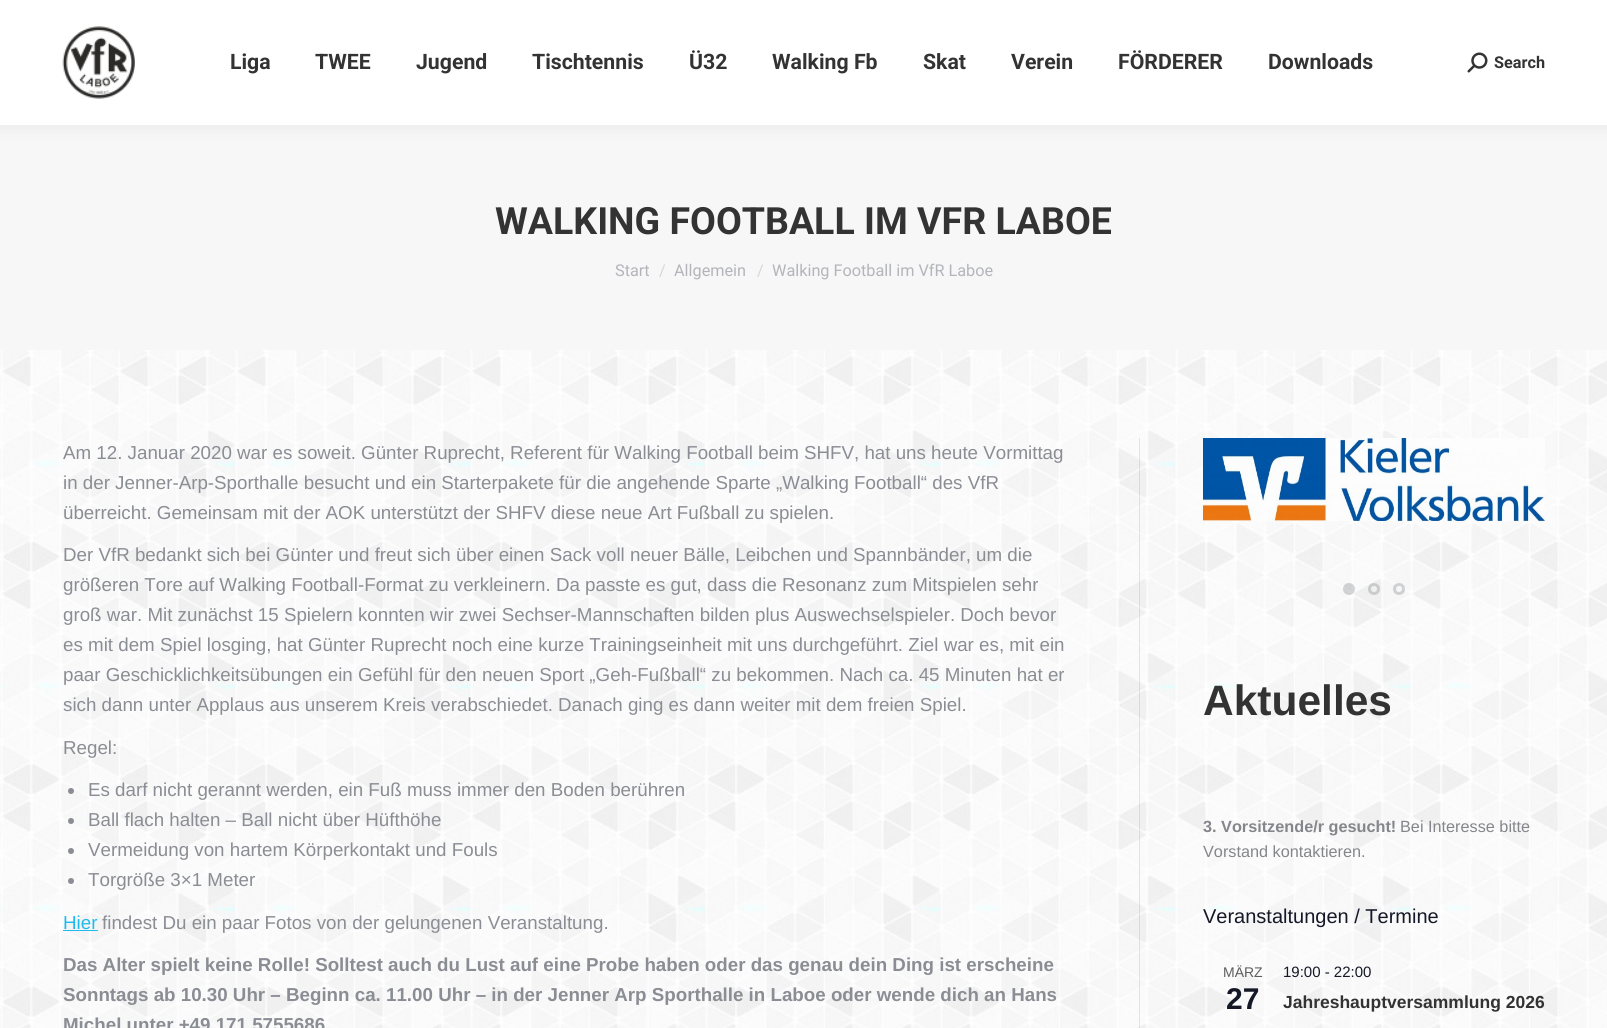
import math
import cairo

surface = cairo.ImageSurface(cairo.FORMAT_RGB24, 1607, 1028)
ctx = cairo.Context(surface)
options = cairo.FontOptions()
options.set_hint_metrics(cairo.HINT_METRICS_OFF)
options.set_hint_style(cairo.HINT_STYLE_NONE)
ctx.set_font_options(options)
ctx.set_miter_limit(4)


def set_color(code):
    ctx.set_source_rgb(*(v / 255 for v in bytes.fromhex(code[-6:])))


def draw_text(x, y, s, family, size, color, bold=False, italic=False):
    ctx.select_font_face(family, cairo.FONT_SLANT_ITALIC if italic else cairo.FONT_SLANT_NORMAL, cairo.FONT_WEIGHT_BOLD if bold else cairo.FONT_WEIGHT_NORMAL)
    ctx.set_font_size(size)
    set_color(color)
    ctx.move_to(x, y)
    ctx.show_text(s)


def fill_rect(x, y, w, h, color):
    set_color(color)
    ctx.rectangle(x, y, w, h)
    ctx.fill()


def rounded_rect(x, y, w, h, r):
    ctx.new_sub_path()
    for i, (u, v) in enumerate([(x + w - r, y + h - r), (x + r, y + h - r), (x + r, y + r), (x + w - r, y + r)]):
        ctx.arc(u, v, r, i * math.pi / 2, (i + 1) * math.pi / 2)
    ctx.close_path()


def draw_shadow(x, y, w, h, r, blur, alpha):
    ctx.push_group_with_content(cairo.CONTENT_ALPHA)
    ctx.set_operator(cairo.OPERATOR_SOURCE)
    for i in range(15, -16, -2):
        e = blur * i / 6
        if min(w, h) + 2 * e > 0:
            ctx.set_source_rgba(0, 0, 0, alpha * math.erfc((i - 1) / 8.5) / 2)
            rounded_rect(x - e, y - e, w + 2 * e, h + 2 * e, max(0, min(r + e + blur * .6, min(w, h) / 2 + e)))
            ctx.fill()
    ctx.mask(ctx.pop_group())


def draw_image(path, x, y, w, h):
    ctx.save()
    ctx.set_source_surface(cairo.ImageSurface.create_from_png(path), x, y)
    ctx.rectangle(x, y, w, h)
    ctx.fill()
    ctx.restore()


set_color("#ffffff")
ctx.paint()
draw_image("assets/img1.png", 0, 350, 1607, 678)
fill_rect(0, 125, 1607, 225, "#f7f7f7")
set_color("#000000")
draw_shadow(-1, -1, 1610, 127, 0, 9.5, 0.07)
fill_rect(0, 0, 1607, 125, "#ffffff")
draw_image("assets/img2.png", 62, 26, 73, 73)
draw_text(230, 69, "Liga", "Roboto", 21.25, "#333333", bold=True)
draw_text(315, 69, "TWEE", "Roboto", 21.25, "#333333", bold=True)
draw_text(416, 69, "Jugend", "Roboto", 21.25, "#333333", bold=True)
draw_text(532, 69, "Tischtennis", "Roboto", 21.25, "#333333", bold=True)
draw_text(689, 69, "Ü32", "Roboto", 21.25, "#333333", bold=True)
draw_text(772, 69, "Walking Fb", "Roboto", 21.25, "#333333", bold=True)
draw_text(923, 69, "Skat", "Roboto", 21.25, "#333333", bold=True)
draw_text(1011, 69, "Verein", "Roboto", 21.25, "#333333", bold=True)
draw_text(1118, 69, "FÖRDERER", "Roboto", 21.25, "#333333", bold=True)
draw_text(1268, 69, "Downloads", "Roboto", 21.25, "#333333", bold=True)
draw_image("assets/img3.png", 1467, 52, 21, 21)
draw_text(1494, 68, "Search", "Roboto", 16.25, "#333333", bold=True)
draw_text(495, 234, "WALKING FOOTBALL IM VFR LABOE", "Roboto", 37.5, "#333333", bold=True)
draw_text(615, 276, "Start", "Roboto", 16.25, "#b4b5bb")
draw_text(659, 276, "/", "Roboto", 16.25, "#d6d6d9")
draw_text(674, 276, "Allgemein", "Roboto", 16.25, "#b4b5bb")
draw_text(757, 276, "/", "Roboto", 16.25, "#d6d6d9")
draw_text(772, 276, "Walking Football im VfR Laboe", "Roboto", 16.25, "#b4b5bb")
draw_text(63, 459, "Am 12. Januar 2020 war es soweit. Günter Ruprecht, Referent für Walking Football beim SHFV, hat uns heute Vormittag", "Liberation Sans", 18.75, "#8b8d94")
draw_text(63, 489, "in der Jenner-Arp-Sporthalle besucht und ein Starterpakete für die angehende Sparte „Walking Football“ des VfR", "Liberation Sans", 18.75, "#8b8d94")
draw_text(63, 519, "überreicht. Gemeinsam mit der AOK unterstützt der SHFV diese neue Art Fußball zu spielen.", "Liberation Sans", 18.75, "#8b8d94")
draw_text(63, 561, "Der VfR bedankt sich bei Günter und freut sich über einen Sack voll neuer Bälle, Leibchen und Spannbänder, um die", "Liberation Sans", 18.75, "#8b8d94")
draw_text(63, 591, "größeren Tore auf Walking Football-Format zu verkleinern. Da passte es gut, dass die Resonanz zum Mitspielen sehr", "Liberation Sans", 18.75, "#8b8d94")
draw_text(63, 621, "groß war. Mit zunächst 15 Spielern konnten wir zwei Sechser-Mannschaften bilden plus Auswechselspieler. Doch bevor", "Liberation Sans", 18.75, "#8b8d94")
draw_text(63, 651, "es mit dem Spiel losging, hat Günter Ruprecht noch eine kurze Trainingseinheit mit uns durchgeführt. Ziel war es, mit ein", "Liberation Sans", 18.75, "#8b8d94")
draw_text(63, 681, "paar Geschicklichkeitsübungen ein Gefühl für den neuen Sport „Geh-Fußball“ zu bekommen. Nach ca. 45 Minuten hat er", "Liberation Sans", 18.75, "#8b8d94")
draw_text(63, 711, "sich dann unter Applaus aus unserem Kreis verabschiedet. Danach ging es dann weiter mit dem freien Spiel.", "Liberation Sans", 18.75, "#8b8d94")
draw_text(63, 754, "Regel:", "Liberation Sans", 18.75, "#8b8d94")
ctx.new_path()
ctx.arc(71, 791, 3, 0, 2 * math.pi)
ctx.fill()
draw_text(88, 796, "Es darf nicht gerannt werden, ein Fuß muss immer den Boden berühren", "Liberation Sans", 18.75, "#8b8d94")
ctx.new_path()
ctx.arc(71, 821, 3, 0, 2 * math.pi)
ctx.fill()
draw_text(88, 826, "Ball flach halten – Ball nicht über Hüfthöhe", "Liberation Sans", 18.75, "#8b8d94")
ctx.new_path()
ctx.arc(71, 851, 3, 0, 2 * math.pi)
ctx.fill()
draw_text(88, 856, "Vermeidung von hartem Körperkontakt und Fouls", "Liberation Sans", 18.75, "#8b8d94")
ctx.new_path()
ctx.arc(71, 881, 3, 0, 2 * math.pi)
ctx.fill()
draw_text(88, 886, "Torgröße 3×1 Meter", "Liberation Sans", 18.75, "#8b8d94")
draw_text(63, 929, "Hier", "Liberation Sans", 18.75, "#1ebbf0")
fill_rect(63, 930, 35, 1, "#1ebbf0")
draw_text(102, 929, "findest Du ein paar Fotos von der gelungenen Veranstaltung.", "Liberation Sans", 18.75, "#8b8d94")
draw_text(63, 971, "Das Alter spielt keine Rolle! Solltest auch du Lust auf eine Probe haben oder das genau dein Ding ist erscheine", "Liberation Sans", 18.75, "#8b8d94", bold=True)
draw_text(63, 1001, "Sonntags ab 10.30 Uhr – Beginn ca. 11.00 Uhr – in der Jenner Arp Sporthalle in Laboe oder wende dich an Hans", "Liberation Sans", 18.75, "#8b8d94", bold=True)
draw_text(63, 1031, "Michel unter +49 171 5755686", "Liberation Sans", 18.75, "#8b8d94", bold=True)
ctx.set_source_rgba(0.2, 0.2, 0.2, 0.12)
ctx.rectangle(1139, 438, 1, 590)
ctx.fill()
draw_image("assets/img4.png", 1203, 438, 342, 83)
ctx.set_source_rgba(0.522, 0.525, 0.549, 0.35)
ctx.arc(1349, 589, 6, 0, 2 * math.pi)
ctx.fill()
ctx.arc(1374, 589, 4.5, 0, 2 * math.pi)
ctx.set_line_width(3)
ctx.stroke()
ctx.arc(1399, 589, 4.5, 0, 2 * math.pi)
ctx.stroke()
draw_text(1203, 715, "Aktuelles", "Liberation Sans", 42.5, "#333333", bold=True)
draw_text(1203, 832, "3. Vorsitzende/r gesucht!", "Liberation Sans", 16.25, "#85868c", bold=True)
draw_text(1400, 832, "Bei Interesse bitte", "Liberation Sans", 16.25, "#85868c")
draw_text(1203, 857, "Vorstand kontaktieren.", "Liberation Sans", 16.25, "#85868c")
draw_text(1203, 923, "Veranstaltungen / Termine", "Liberation Sans", 20, "#141827")
draw_text(1223, 977, "MÄRZ", "Liberation Sans", 14, "#5d5d5d")
draw_text(1226, 1009, "27", "Liberation Sans", 30, "#141827", bold=True)
draw_text(1283, 977, "19:00 - 22:00", "Liberation Sans", 15, "#141827")
draw_text(1283, 1008, "Jahreshauptversammlung 2026", "Liberation Sans", 17.5, "#333333", bold=True)
surface.write_to_png("output.png")
